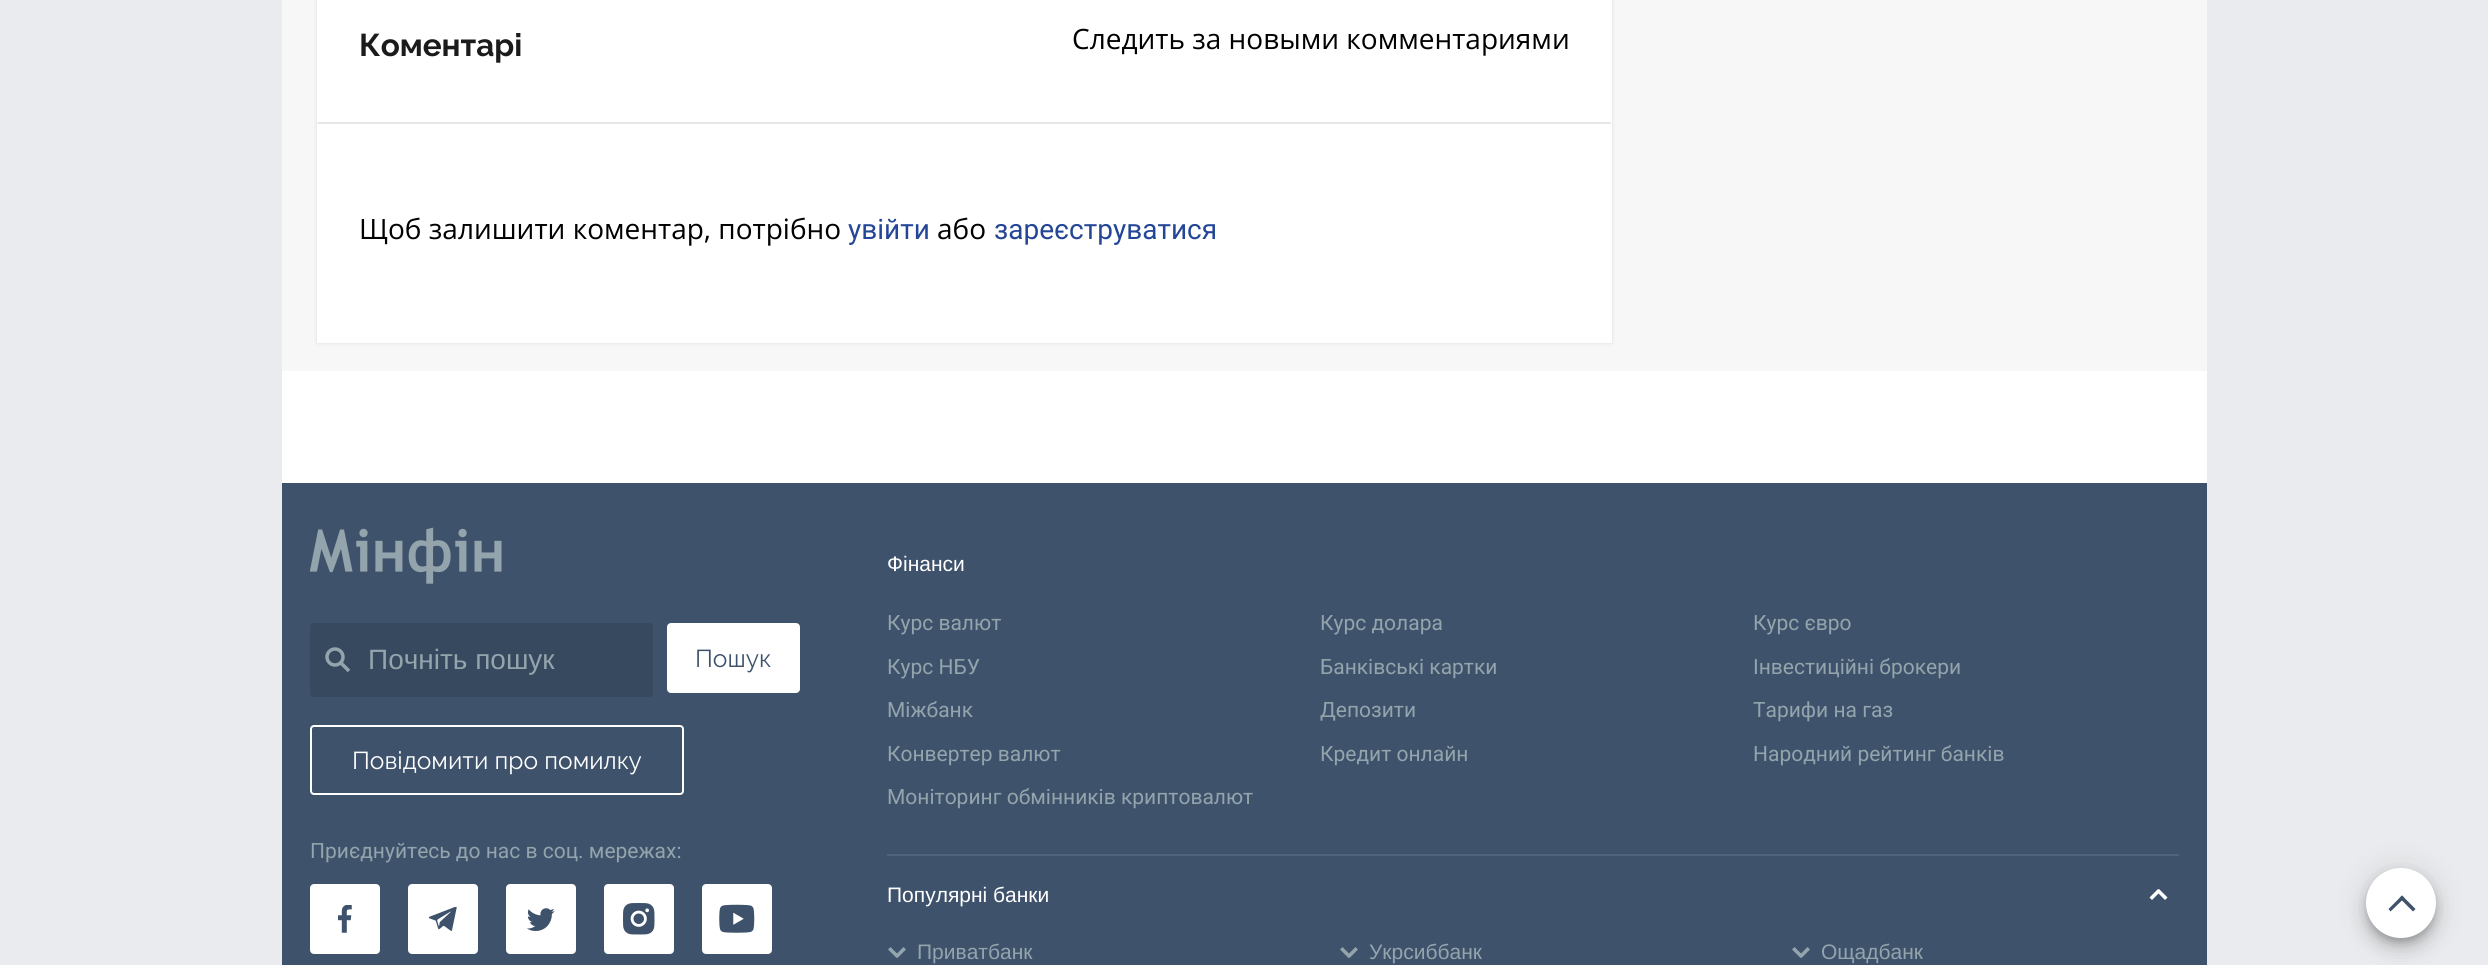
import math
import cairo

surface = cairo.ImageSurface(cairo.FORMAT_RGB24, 2488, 965)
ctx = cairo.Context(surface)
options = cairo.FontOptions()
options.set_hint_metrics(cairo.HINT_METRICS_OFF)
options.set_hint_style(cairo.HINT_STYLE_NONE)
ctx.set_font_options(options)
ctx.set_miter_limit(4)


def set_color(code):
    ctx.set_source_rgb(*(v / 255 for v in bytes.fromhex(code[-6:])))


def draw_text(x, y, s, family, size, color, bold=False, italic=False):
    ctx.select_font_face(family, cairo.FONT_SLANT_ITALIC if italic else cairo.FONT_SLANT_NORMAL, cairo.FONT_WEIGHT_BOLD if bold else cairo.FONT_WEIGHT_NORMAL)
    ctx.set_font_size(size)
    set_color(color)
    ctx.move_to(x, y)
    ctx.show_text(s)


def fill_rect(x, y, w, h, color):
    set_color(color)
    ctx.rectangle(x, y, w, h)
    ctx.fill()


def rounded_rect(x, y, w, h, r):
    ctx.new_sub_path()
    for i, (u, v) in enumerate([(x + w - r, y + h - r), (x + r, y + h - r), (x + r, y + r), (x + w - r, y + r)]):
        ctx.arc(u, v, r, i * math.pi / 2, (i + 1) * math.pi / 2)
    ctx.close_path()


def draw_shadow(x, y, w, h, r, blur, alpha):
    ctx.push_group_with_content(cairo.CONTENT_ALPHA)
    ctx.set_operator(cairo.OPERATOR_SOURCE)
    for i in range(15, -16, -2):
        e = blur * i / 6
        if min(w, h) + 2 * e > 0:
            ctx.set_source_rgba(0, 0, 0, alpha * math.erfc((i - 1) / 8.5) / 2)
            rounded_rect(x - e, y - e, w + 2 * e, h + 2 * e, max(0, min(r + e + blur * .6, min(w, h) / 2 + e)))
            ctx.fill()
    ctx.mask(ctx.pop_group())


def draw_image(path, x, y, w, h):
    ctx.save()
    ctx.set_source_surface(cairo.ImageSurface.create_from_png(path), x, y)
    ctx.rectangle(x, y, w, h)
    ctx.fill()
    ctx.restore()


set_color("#e9ebee")
ctx.paint()
fill_rect(282, 0, 1925, 371, "#f7f7f7")
set_color("#dddddd")
draw_shadow(317, -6, 1295, 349, 0, 2, 1)
fill_rect(317, 0, 1295, 343, "#ffffff")
set_color("#e7e7e7")
ctx.new_path()
ctx.move_to(1612, 124)
ctx.line_to(317, 124)
ctx.line_to(318, 122)
ctx.line_to(1610, 122)
ctx.close_path()
ctx.fill()
draw_text(359, 56, "Коментарі", "Raleway", 31.5, "#1b1b1b", bold=True)
draw_text(1072, 49, "Следить за новыми комментариями", "Open Sans", 28, "#000000")
draw_text(359, 239, "Щоб залишити коментар, потрібно", "Open Sans", 28, "#000000")
draw_text(848, 239, "увійти", "Roboto", 28, "#244696")
draw_text(937, 239, "або", "Open Sans", 28, "#000000")
draw_text(994, 239, "зареєструватися", "Roboto", 28, "#244696")
fill_rect(282, 371, 1925, 112, "#ffffff")
fill_rect(282, 483, 1925, 482, "#3e526b")
draw_image("assets/img1.png", 310, 527, 192, 57)
set_color("#36495e")
rounded_rect(311, 624, 341, 72, 3)
ctx.fill_preserve()
ctx.stroke()
ctx.arc(335, 657, 8, 0, 2 * math.pi)
set_color("#93a4ac")
ctx.set_line_width(3.5)
ctx.stroke()
ctx.new_path()
ctx.move_to(341, 663)
ctx.line_to(349, 671)
ctx.stroke()
draw_text(368, 669, "Почніть пошук", "Liberation Sans", 28, "#93a4ac")
set_color("#ffffff")
rounded_rect(668, 624, 131, 68, 3)
ctx.fill_preserve()
ctx.set_line_width(2)
ctx.stroke()
draw_text(695, 667, "Пошук", "Raleway", 24.5, "#3e526b")
rounded_rect(311, 726, 372, 68, 3)
set_color("#ffffff")
ctx.stroke()
draw_text(352, 769, "Повідомити про помилку", "Raleway", 24.5, "#ffffff")
draw_text(310, 858, "Приєднуйтесь до нас в соц. мережах:", "Roboto", 21, "#93a4ac")
set_color("#ffffff")
rounded_rect(311, 885, 68, 68, 3)
ctx.fill_preserve()
ctx.stroke()
draw_image("assets/img2.png", 338, 905, 14, 28)
rounded_rect(409, 885, 68, 68, 3)
ctx.fill_preserve()
ctx.stroke()
draw_image("assets/img3.png", 429, 907, 28, 24)
rounded_rect(507, 885, 68, 68, 3)
ctx.fill_preserve()
ctx.stroke()
draw_image("assets/img4.png", 527, 908, 28, 23)
rounded_rect(605, 885, 68, 68, 3)
ctx.fill_preserve()
ctx.stroke()
draw_image("assets/img5.png", 623, 903, 32, 32)
rounded_rect(703, 885, 68, 68, 3)
ctx.fill_preserve()
ctx.stroke()
draw_image("assets/img6.png", 719, 904, 36, 29)
draw_text(887, 571, "Фінанси", "Liberation Sans", 21, "#ffffff")
draw_text(887, 630, "Курс валют", "Roboto", 21, "#93a4ac")
draw_text(1320, 630, "Курс долара", "Roboto", 21, "#93a4ac")
draw_text(1753, 630, "Курс євро", "Roboto", 21, "#93a4ac")
draw_text(887, 674, "Курс НБУ", "Roboto", 21, "#93a4ac")
draw_text(1320, 674, "Банківські картки", "Roboto", 21, "#93a4ac")
draw_text(1753, 674, "Інвестиційні брокери", "Roboto", 21, "#93a4ac")
draw_text(887, 717, "Міжбанк", "Roboto", 21, "#93a4ac")
draw_text(1320, 717, "Депозити", "Roboto", 21, "#93a4ac")
draw_text(1753, 717, "Тарифи на газ", "Roboto", 21, "#93a4ac")
draw_text(887, 761, "Конвертер валют", "Roboto", 21, "#93a4ac")
draw_text(1320, 761, "Кредит онлайн", "Roboto", 21, "#93a4ac")
draw_text(1753, 761, "Народний рейтинг банків", "Roboto", 21, "#93a4ac")
draw_text(887, 804, "Моніторинг обмінників криптовалют", "Roboto", 21, "#93a4ac")
fill_rect(887, 854, 1292, 2, "#51637a")
draw_text(887, 902, "Популярні банки", "Liberation Sans", 21, "#ffffff")
ctx.new_path()
ctx.move_to(2159, 889)
ctx.line_to(2167.5, 897.5)
ctx.line_to(2165, 900)
ctx.line_to(2156.5, 891.5)
ctx.close_path()
ctx.fill()
ctx.new_path()
ctx.move_to(2149.5, 897.5)
ctx.line_to(2158, 889)
ctx.line_to(2160.5, 891.5)
ctx.line_to(2152, 900)
ctx.close_path()
ctx.fill()
set_color("#93a4ac")
ctx.new_path()
ctx.move_to(895, 955.5)
ctx.line_to(903.5, 947)
ctx.line_to(906, 949.5)
ctx.line_to(897.5, 958)
ctx.close_path()
ctx.fill()
ctx.new_path()
ctx.move_to(890.5, 947)
ctx.line_to(899, 955.5)
ctx.line_to(896.5, 958)
ctx.line_to(888, 949.5)
ctx.close_path()
ctx.fill()
draw_text(917, 959, "Приватбанк", "Liberation Sans", 21, "#93a4ac")
ctx.new_path()
ctx.move_to(1347, 955.5)
ctx.line_to(1355.5, 947)
ctx.line_to(1358, 949.5)
ctx.line_to(1349.5, 958)
ctx.close_path()
ctx.fill()
ctx.new_path()
ctx.move_to(1342.5, 947)
ctx.line_to(1351, 955.5)
ctx.line_to(1348.5, 958)
ctx.line_to(1340, 949.5)
ctx.close_path()
ctx.fill()
draw_text(1369, 959, "Укрсиббанк", "Liberation Sans", 21, "#93a4ac")
ctx.new_path()
ctx.move_to(1799, 955.5)
ctx.line_to(1807.5, 947)
ctx.line_to(1810, 949.5)
ctx.line_to(1801.5, 958)
ctx.close_path()
ctx.fill()
ctx.new_path()
ctx.move_to(1794.5, 947)
ctx.line_to(1803, 955.5)
ctx.line_to(1800.5, 958)
ctx.line_to(1792, 949.5)
ctx.close_path()
ctx.fill()
draw_text(1821, 959, "Ощадбанк", "Liberation Sans", 21, "#93a4ac")
set_color("#000000")
draw_shadow(2366, 870, 70, 70, 35, 16, 0.12)
draw_shadow(2366, 879, 70, 70, 35, 9, 0.14)
draw_shadow(2368, 875, 66, 67, 33, 4.5, 0.2)
set_color("#ffffff")
ctx.arc(2401, 903, 35, 0, 2 * math.pi)
ctx.fill()
set_color("#3e526b")
ctx.new_path()
ctx.move_to(2402, 895.5)
ctx.line_to(2415.5, 909)
ctx.line_to(2413, 911.5)
ctx.line_to(2399.5, 898)
ctx.close_path()
ctx.fill()
ctx.new_path()
ctx.move_to(2402, 895.5)
ctx.line_to(2404.5, 898)
ctx.line_to(2390.5, 911.5)
ctx.line_to(2388.5, 909)
ctx.close_path()
ctx.fill()
surface.write_to_png("output.png")
